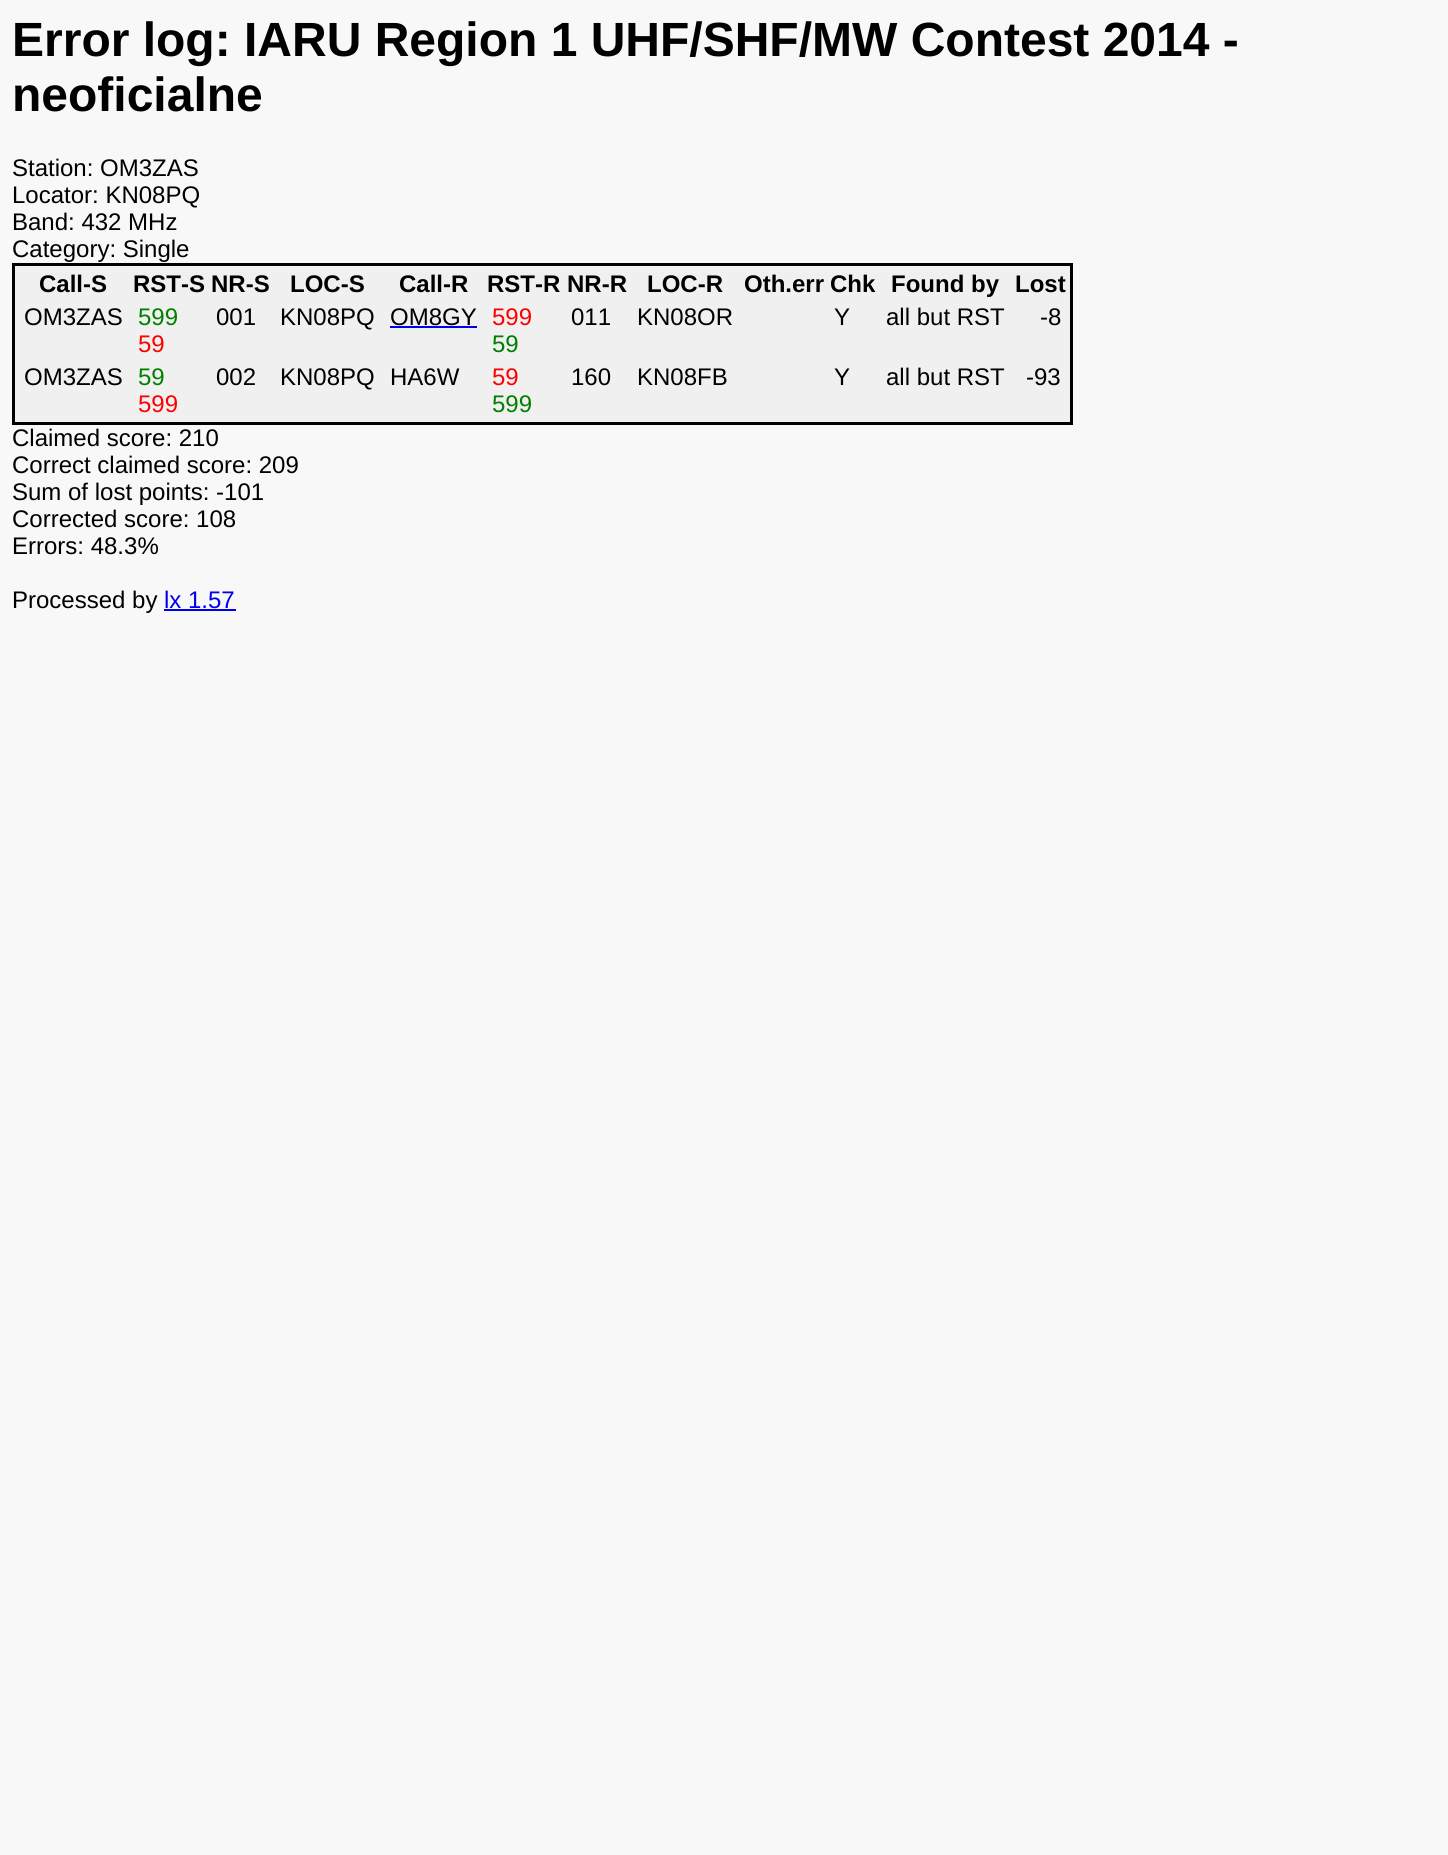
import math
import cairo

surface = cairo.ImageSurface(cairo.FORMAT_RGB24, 1448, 1855)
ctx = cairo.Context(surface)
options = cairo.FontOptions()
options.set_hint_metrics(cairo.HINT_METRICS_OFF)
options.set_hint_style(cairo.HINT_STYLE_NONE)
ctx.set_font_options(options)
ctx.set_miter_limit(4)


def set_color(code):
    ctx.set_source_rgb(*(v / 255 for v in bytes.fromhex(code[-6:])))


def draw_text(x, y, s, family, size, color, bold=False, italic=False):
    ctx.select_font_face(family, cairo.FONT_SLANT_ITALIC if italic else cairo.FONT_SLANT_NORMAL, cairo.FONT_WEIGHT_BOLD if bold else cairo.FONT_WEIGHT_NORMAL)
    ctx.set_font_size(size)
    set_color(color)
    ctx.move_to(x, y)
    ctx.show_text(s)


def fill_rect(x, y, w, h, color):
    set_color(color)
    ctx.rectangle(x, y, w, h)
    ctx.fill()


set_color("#f8f8f8")
ctx.paint()
draw_text(12, 56, "Error log: IARU Region 1 UHF/SHF/MW Contest 2014 -", "Liberation Sans", 48, "#000000", bold=True)
draw_text(12, 111, "neoficialne", "Liberation Sans", 48, "#000000", bold=True)
draw_text(12, 176, "Station: OM3ZAS", "Liberation Sans", 24, "#000000")
draw_text(12, 203, "Locator: KN08PQ", "Liberation Sans", 24, "#000000")
draw_text(12, 230, "Band: 432 MHz", "Liberation Sans", 24, "#000000")
draw_text(12, 257, "Category: Single", "Liberation Sans", 24, "#000000")
set_color("#f0f0f0")
ctx.rectangle(13.5, 264.5, 1058, 159)
ctx.fill_preserve()
set_color("#000000")
ctx.set_line_width(3)
ctx.stroke()
draw_text(39, 292, "Call-S", "Liberation Sans", 24, "#000000", bold=True)
draw_text(133, 292, "RST-S", "Liberation Sans", 24, "#000000", bold=True)
draw_text(211, 292, "NR-S", "Liberation Sans", 24, "#000000", bold=True)
draw_text(290, 292, "LOC-S", "Liberation Sans", 24, "#000000", bold=True)
draw_text(399, 292, "Call-R", "Liberation Sans", 24, "#000000", bold=True)
draw_text(487, 292, "RST-R", "Liberation Sans", 24, "#000000", bold=True)
draw_text(567, 292, "NR-R", "Liberation Sans", 24, "#000000", bold=True)
draw_text(647, 292, "LOC-R", "Liberation Sans", 24, "#000000", bold=True)
draw_text(744, 292, "Oth.err", "Liberation Sans", 24, "#000000", bold=True)
draw_text(830, 292, "Chk", "Liberation Sans", 24, "#000000", bold=True)
draw_text(891, 292, "Found by", "Liberation Sans", 24, "#000000", bold=True)
draw_text(1015, 292, "Lost", "Liberation Sans", 24, "#000000", bold=True)
draw_text(24, 325, "OM3ZAS", "Liberation Sans", 24, "#000000")
draw_text(138, 325, "599", "Liberation Sans", 24, "#008000")
draw_text(138, 352, "59", "Liberation Sans", 24, "#ff0000")
draw_text(216, 325, "001", "Liberation Sans", 24, "#000000")
draw_text(280, 325, "KN08PQ", "Liberation Sans", 24, "#000000")
draw_text(390, 325, "OM8GY", "Liberation Sans", 24, "#000000")
fill_rect(390, 326, 87, 2, "#0000ee")
draw_text(492, 325, "599", "Liberation Sans", 24, "#ff0000")
draw_text(492, 352, "59", "Liberation Sans", 24, "#008000")
draw_text(571, 325, "011", "Liberation Sans", 24, "#000000")
draw_text(637, 325, "KN08OR", "Liberation Sans", 24, "#000000")
draw_text(834, 325, "Y", "Liberation Sans", 24, "#000000")
draw_text(886, 325, "all but RST", "Liberation Sans", 24, "#000000")
draw_text(1040, 325, "-8", "Liberation Sans", 24, "#000000")
draw_text(24, 385, "OM3ZAS", "Liberation Sans", 24, "#000000")
draw_text(138, 385, "59", "Liberation Sans", 24, "#008000")
draw_text(138, 412, "599", "Liberation Sans", 24, "#ff0000")
draw_text(216, 385, "002", "Liberation Sans", 24, "#000000")
draw_text(280, 385, "KN08PQ", "Liberation Sans", 24, "#000000")
draw_text(390, 385, "HA6W", "Liberation Sans", 24, "#000000")
draw_text(492, 385, "59", "Liberation Sans", 24, "#ff0000")
draw_text(492, 412, "599", "Liberation Sans", 24, "#008000")
draw_text(571, 385, "160", "Liberation Sans", 24, "#000000")
draw_text(637, 385, "KN08FB", "Liberation Sans", 24, "#000000")
draw_text(834, 385, "Y", "Liberation Sans", 24, "#000000")
draw_text(886, 385, "all but RST", "Liberation Sans", 24, "#000000")
draw_text(1026, 385, "-93", "Liberation Sans", 24, "#000000")
draw_text(12, 446, "Claimed score: 210", "Liberation Sans", 24, "#000000")
draw_text(12, 473, "Correct claimed score: 209", "Liberation Sans", 24, "#000000")
draw_text(12, 500, "Sum of lost points: -101", "Liberation Sans", 24, "#000000")
draw_text(12, 527, "Corrected score: 108", "Liberation Sans", 24, "#000000")
draw_text(12, 554, "Errors: 48.3%", "Liberation Sans", 24, "#000000")
draw_text(12, 608, "Processed by", "Liberation Sans", 24, "#000000")
draw_text(164, 608, "lx 1.57", "Liberation Sans", 24, "#0000ee")
fill_rect(164, 609, 72, 2, "#0000ee")
surface.write_to_png("output.png")
